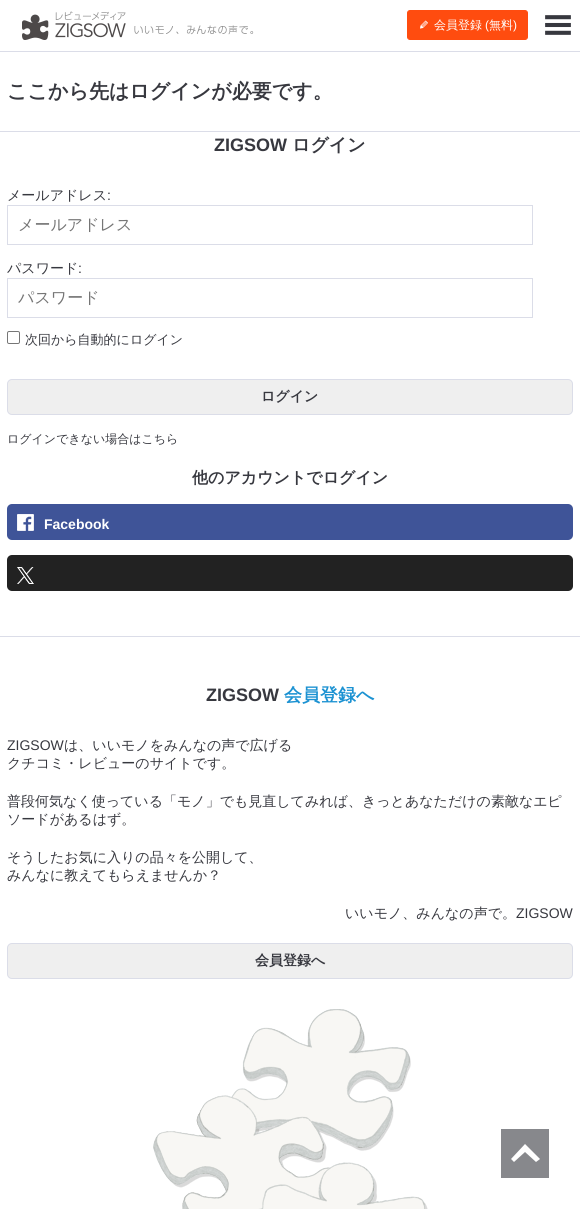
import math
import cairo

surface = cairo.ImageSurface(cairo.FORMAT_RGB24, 580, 1209)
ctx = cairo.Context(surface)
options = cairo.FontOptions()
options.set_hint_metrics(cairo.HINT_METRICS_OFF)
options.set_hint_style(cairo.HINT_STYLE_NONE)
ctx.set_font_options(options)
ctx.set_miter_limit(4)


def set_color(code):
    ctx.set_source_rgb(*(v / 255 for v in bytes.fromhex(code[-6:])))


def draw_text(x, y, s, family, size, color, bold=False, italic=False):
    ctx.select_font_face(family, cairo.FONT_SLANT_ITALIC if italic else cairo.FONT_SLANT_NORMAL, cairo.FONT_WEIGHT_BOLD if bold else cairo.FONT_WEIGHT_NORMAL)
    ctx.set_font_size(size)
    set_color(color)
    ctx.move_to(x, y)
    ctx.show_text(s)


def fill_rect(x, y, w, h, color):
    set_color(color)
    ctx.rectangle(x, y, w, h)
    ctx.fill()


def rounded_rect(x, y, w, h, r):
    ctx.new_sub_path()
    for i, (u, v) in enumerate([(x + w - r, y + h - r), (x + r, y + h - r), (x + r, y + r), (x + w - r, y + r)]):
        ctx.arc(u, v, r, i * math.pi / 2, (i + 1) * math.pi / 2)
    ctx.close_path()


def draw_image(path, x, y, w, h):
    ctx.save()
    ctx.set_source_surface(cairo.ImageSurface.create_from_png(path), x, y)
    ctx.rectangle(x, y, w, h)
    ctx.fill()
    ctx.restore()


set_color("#ffffff")
ctx.paint()
fill_rect(0, 51, 580, 1, "#dbdde8")
draw_image("assets/img1.png", 22, 11, 232, 29)
set_color("#ff4c0f")
rounded_rect(407.5, 10.5, 120, 29, 2.5)
ctx.fill_preserve()
ctx.set_line_width(1)
ctx.stroke()
draw_image("assets/img2.png", 420, 20, 8, 9)
draw_text(434, 29, "会員登録", "WenQuanYi Zen Hei Medium", 12, "#ffffff")
draw_text(485, 29, "(", "Liberation Sans", 12, "#ffffff")
draw_text(489, 29, "無料", "WenQuanYi Zen Hei Medium", 12, "#ffffff")
draw_text(513, 29, ")", "Liberation Sans", 12, "#ffffff")
draw_image("assets/img3.png", 545, 15, 26, 20)
draw_text(7, 98, "ここから先はログインが必要です。", "WenQuanYi Zen Hei", 20, "#37383f", bold=True)
fill_rect(0, 131, 580, 1, "#dbdde8")
draw_text(214, 151, "ZIGSOW", "Liberation Sans", 18, "#37383f", bold=True)
draw_text(292, 151, "ログイン", "WenQuanYi Zen Hei", 18, "#37383f", bold=True)
draw_text(7, 200, "メールアドレス", "WenQuanYi Zen Hei Medium", 14, "#37383f")
draw_text(107, 200, ":", "Liberation Sans", 14, "#37383f")
ctx.rectangle(7.5, 205.5, 525, 39)
set_color("#dbdde8")
ctx.stroke()
draw_text(18, 230, "メールアドレス", "WenQuanYi Zen Hei Medium", 16, "#757575")
draw_text(7, 273, "パスワード", "WenQuanYi Zen Hei Medium", 14, "#37383f")
draw_text(78, 273, ":", "Liberation Sans", 14, "#37383f")
ctx.rectangle(7.5, 278.5, 525, 39)
set_color("#dbdde8")
ctx.stroke()
draw_text(18, 303, "パスワード", "WenQuanYi Zen Hei Medium", 16, "#757575")
rounded_rect(7.5, 331.5, 12, 12, 1.5)
set_color("#767676")
ctx.stroke()
draw_text(25, 344, "次回から自動的にログイン", "WenQuanYi Zen Hei Medium", 13, "#37383f")
set_color("#efefef")
rounded_rect(7.5, 379.5, 565, 35, 4.5)
ctx.fill_preserve()
set_color("#dbdde8")
ctx.stroke()
draw_text(261, 401, "ログイン", "WenQuanYi Zen Hei", 14, "#37383f", bold=True)
draw_text(7, 443, "ログインできない場合はこちら", "WenQuanYi Zen Hei Medium", 12, "#37383f")
draw_text(192, 483, "他のアカウントでログイン", "WenQuanYi Zen Hei", 16, "#37383f", bold=True)
set_color("#3f5498")
rounded_rect(7, 504, 566, 36, 5)
ctx.fill()
draw_image("assets/img4.png", 17, 514, 17, 17)
draw_text(44, 529, "Facebook", "Liberation Sans", 14, "#ffffff", bold=True)
set_color("#222222")
rounded_rect(7, 555, 566, 36, 5)
ctx.fill()
draw_image("assets/img5.png", 17, 567, 17, 17)
fill_rect(0, 636, 580, 1, "#dbdde8")
draw_text(206, 701, "ZIGSOW", "Liberation Sans", 18, "#37383f", bold=True)
draw_text(284, 701, "会員登録へ", "WenQuanYi Zen Hei", 18, "#1c92d2", bold=True)
draw_text(7, 750, "ZIGSOW", "Liberation Sans", 14, "#37383f")
draw_text(64, 750, "は、いいモノをみんなの声で広げる", "WenQuanYi Zen Hei Medium", 14, "#37383f")
draw_text(7, 768, "クチコミ・レビューのサイトです。", "WenQuanYi Zen Hei Medium", 14, "#37383f")
draw_text(7, 806, "普段何気なく使っている「モノ」でも見直してみれば、きっとあなただけの素敵なエピ", "WenQuanYi Zen Hei Medium", 14, "#37383f")
draw_text(7, 824, "ソードがあるはず。", "WenQuanYi Zen Hei Medium", 14, "#37383f")
draw_text(7, 862, "そうしたお気に入りの品々を公開して、", "WenQuanYi Zen Hei Medium", 14, "#37383f")
draw_text(7, 880, "みんなに教えてもらえませんか？", "WenQuanYi Zen Hei Medium", 14, "#37383f")
draw_text(345, 918, "いいモノ、みんなの声で。", "WenQuanYi Zen Hei Medium", 14, "#37383f")
draw_text(516, 918, "ZIGSOW", "Liberation Sans", 14, "#37383f")
set_color("#efefef")
rounded_rect(7.5, 943.5, 565, 35, 4.5)
ctx.fill_preserve()
set_color("#dbdde8")
ctx.stroke()
draw_text(255, 965, "会員登録へ", "WenQuanYi Zen Hei", 14, "#37383f", bold=True)
draw_image("assets/img6.png", 153, 1009, 275, 200)
set_color("#87888c")
ctx.new_path()
ctx.move_to(501, 1178)
ctx.line_to(549, 1178)
ctx.line_to(549, 1129)
ctx.line_to(501, 1129)
ctx.close_path()
ctx.move_to(536, 1162)
ctx.line_to(525, 1152)
ctx.line_to(514, 1162)
ctx.line_to(511, 1159)
ctx.line_to(525, 1144)
ctx.line_to(540, 1159)
ctx.close_path()
ctx.fill()
surface.write_to_png("output.png")
